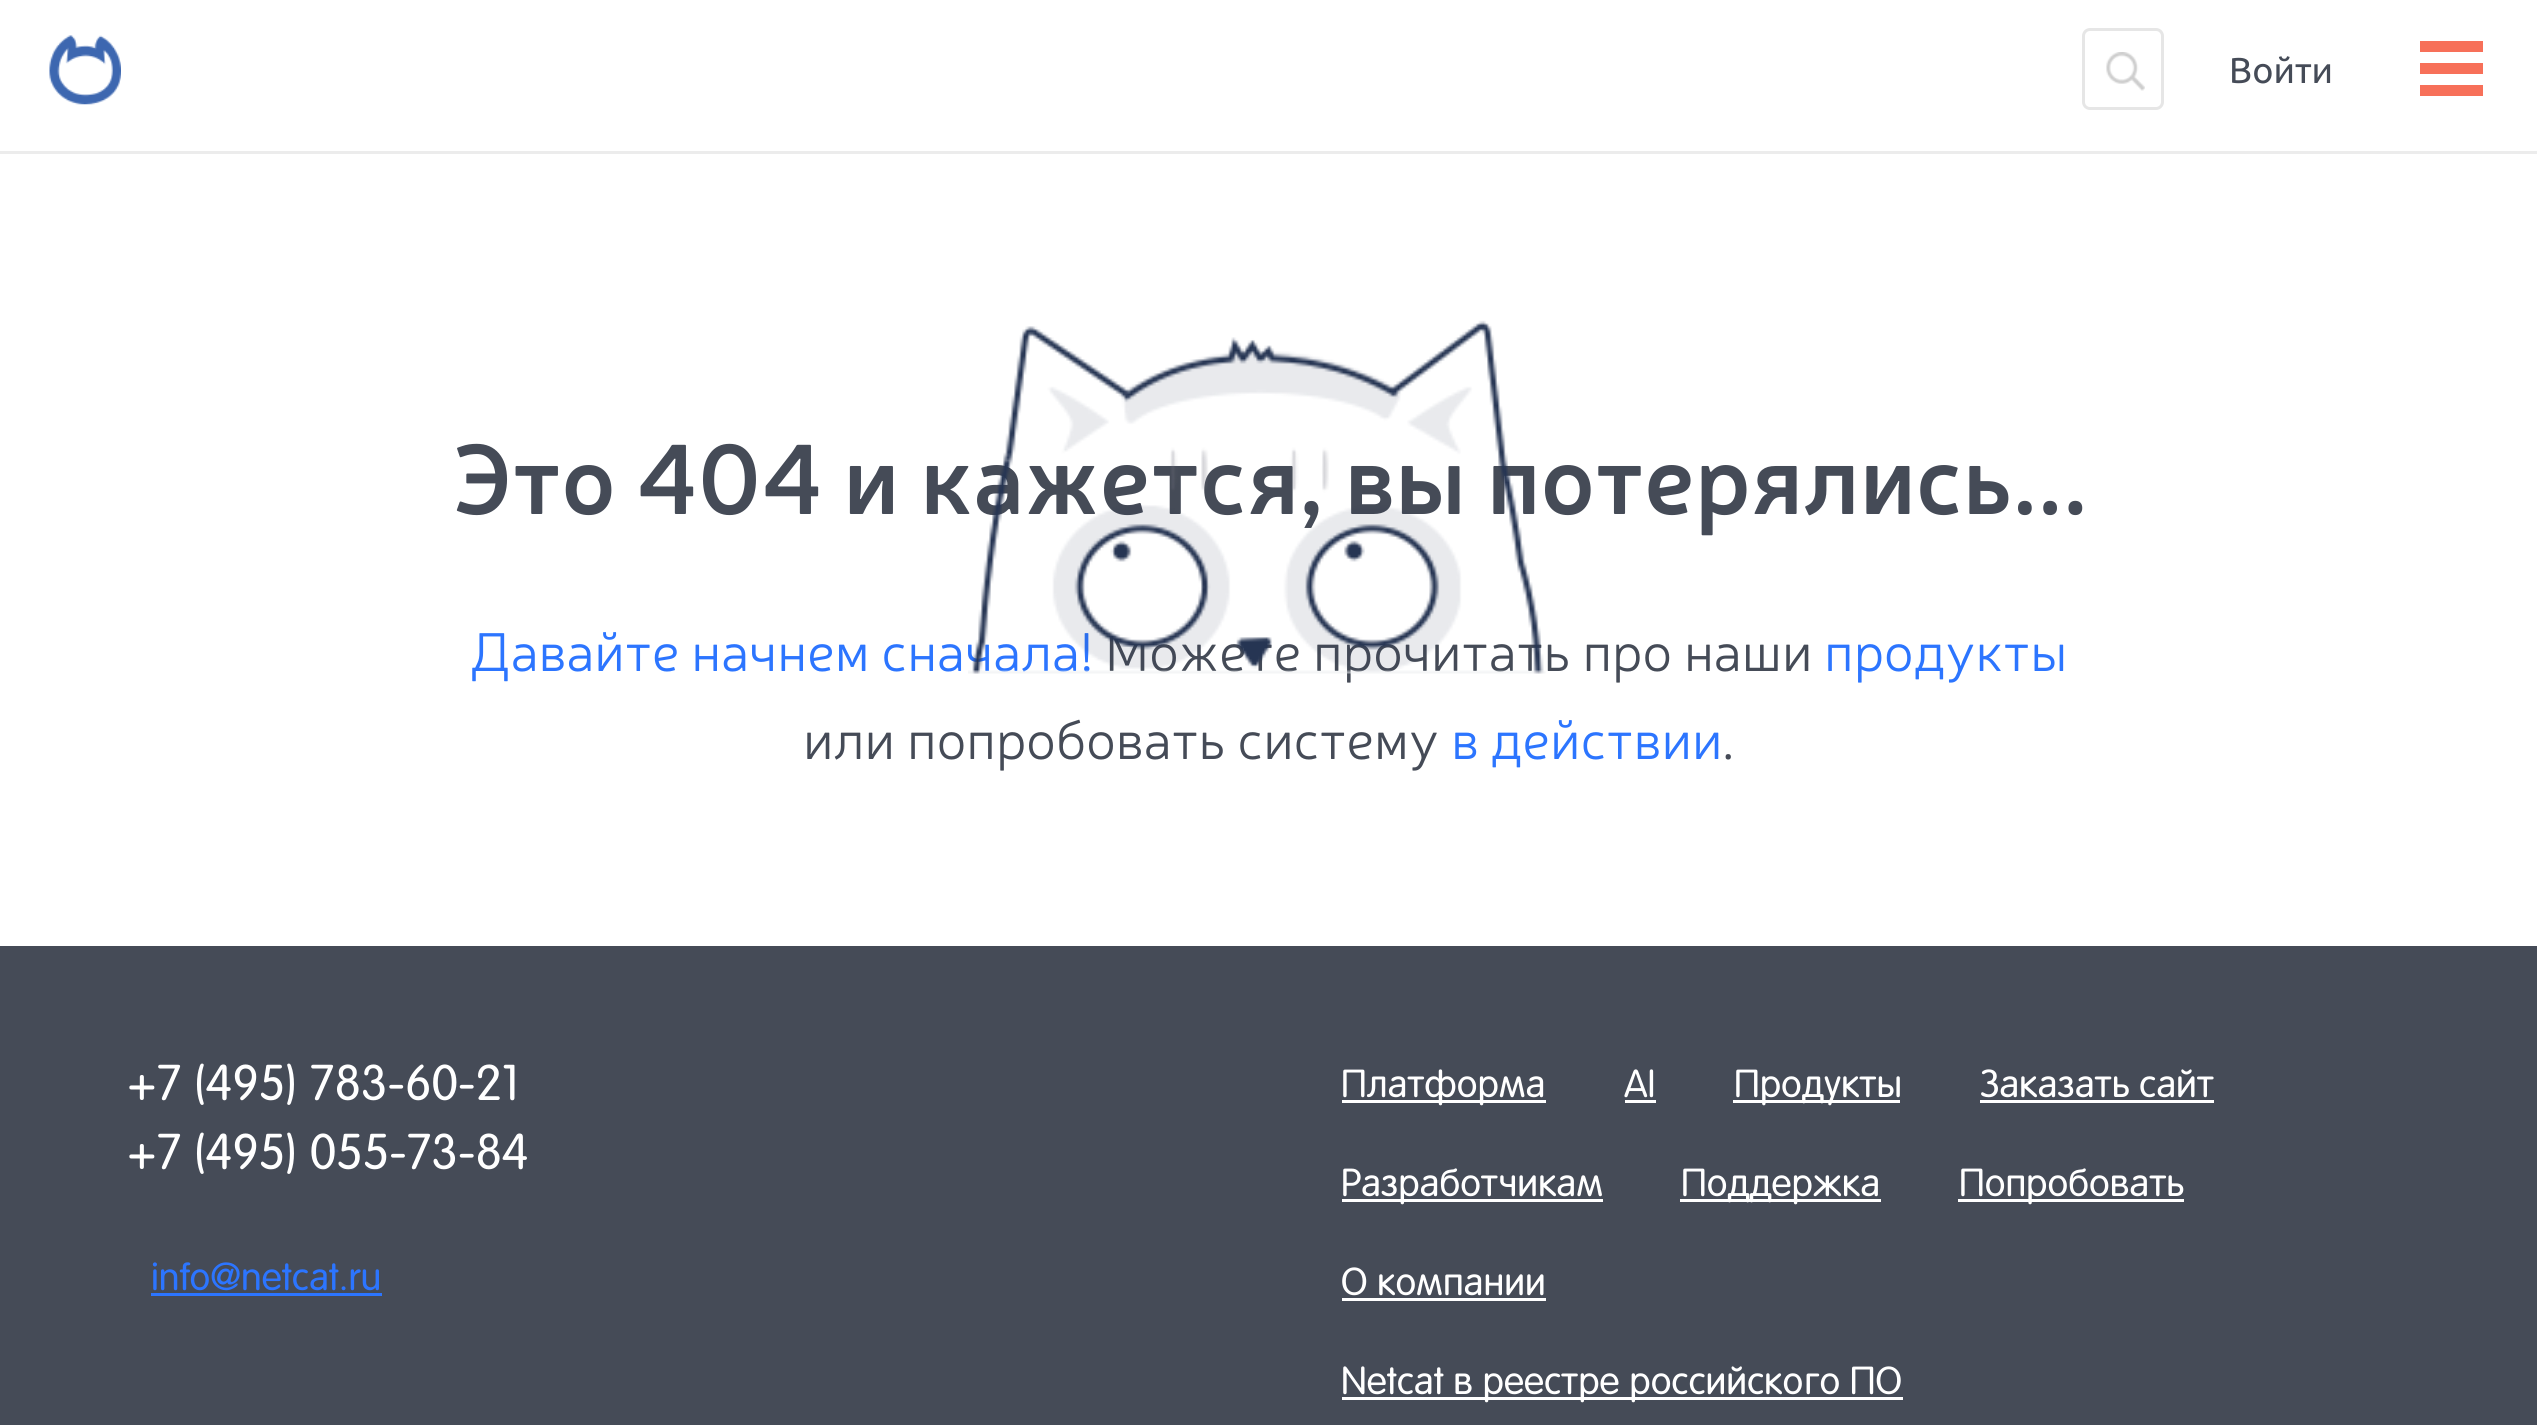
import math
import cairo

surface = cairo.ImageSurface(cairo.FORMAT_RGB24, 2537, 1425)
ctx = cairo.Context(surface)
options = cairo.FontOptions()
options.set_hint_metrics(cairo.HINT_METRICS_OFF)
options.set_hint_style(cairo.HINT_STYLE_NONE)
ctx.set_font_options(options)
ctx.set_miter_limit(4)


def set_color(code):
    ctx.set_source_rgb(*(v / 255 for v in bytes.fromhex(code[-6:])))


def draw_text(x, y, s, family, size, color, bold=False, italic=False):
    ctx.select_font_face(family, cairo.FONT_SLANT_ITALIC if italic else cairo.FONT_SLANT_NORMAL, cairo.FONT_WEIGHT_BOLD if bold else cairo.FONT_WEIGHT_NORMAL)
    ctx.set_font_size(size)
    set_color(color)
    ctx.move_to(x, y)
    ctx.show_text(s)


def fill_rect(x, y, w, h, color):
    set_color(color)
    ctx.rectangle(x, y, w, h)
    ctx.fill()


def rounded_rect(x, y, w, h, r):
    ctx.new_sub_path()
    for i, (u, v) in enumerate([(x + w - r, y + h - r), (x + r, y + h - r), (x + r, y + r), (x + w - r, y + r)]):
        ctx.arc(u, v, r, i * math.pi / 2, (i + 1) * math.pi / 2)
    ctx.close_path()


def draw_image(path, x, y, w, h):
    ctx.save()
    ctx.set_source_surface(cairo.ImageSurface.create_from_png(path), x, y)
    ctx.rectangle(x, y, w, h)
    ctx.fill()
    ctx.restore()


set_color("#ffffff")
ctx.paint()
fill_rect(0, 151, 2537, 3, "#ececec")
draw_image("assets/img1.png", 49, 35, 72, 70)
rounded_rect(2083.5, 29.5, 79, 79, 6.5)
set_color("#e6e6e6")
ctx.set_line_width(3)
ctx.stroke()
draw_image("assets/img2.png", 2106, 52, 39, 39)
draw_text(2229, 83, "Войти", "Ubuntu", 36, "#454b57")
fill_rect(2420, 41, 63, 11, "#f77059")
fill_rect(2420, 63, 63, 11, "#f77059")
fill_rect(2420, 85, 63, 11, "#f77059")
draw_text(451, 514, "Это 404 и кажется, вы потерялись...", "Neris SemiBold", 99, "#454b57")
draw_text(470, 671, "Давайте начнем сначала!", "Neris Light", 55, "#2c75ff")
draw_text(1105, 671, "Можете прочитать про наши", "Neris Light", 55, "#454b57")
draw_image("assets/img3.png", 968, 320, 578, 354)
draw_text(1824, 671, "продукты", "Neris Light", 55, "#2c75ff")
draw_text(803, 759, "или попробовать систему", "Neris Light", 55, "#454b57")
draw_text(1451, 759, "в действии", "Neris Light", 55, "#2c75ff")
draw_text(1722, 759, ".", "Neris Light", 55, "#454b57")
fill_rect(0, 946, 2537, 479, "#454b57")
draw_text(127, 1100, "+7 (495) 783-60-21", "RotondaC", 49.5, "#ffffff")
draw_text(127, 1169, "+7 (495) 055-73-84", "RotondaC", 49.5, "#ffffff")
draw_text(151, 1290, "info@netcat.ru", "RotondaC", 38.5, "#2c75ff")
fill_rect(151, 1293, 231, 3, "#2c75ff")
fill_rect(1342, 1100, 204, 3, "#ffffff")
draw_text(1341, 1097, "Платформа", "RotondaC", 38.5, "#ffffff")
draw_text(1624, 1097, "AI", "RotondaC", 38.5, "#ffffff")
fill_rect(1625, 1100, 31, 3, "#ffffff")
fill_rect(1733, 1100, 167, 3, "#ffffff")
draw_text(1734, 1097, "Продукты", "RotondaC", 38.5, "#ffffff")
draw_text(1980, 1097, "Заказать сайт", "RotondaC", 38.5, "#ffffff")
fill_rect(1980, 1100, 234, 3, "#ffffff")
fill_rect(1342, 1199, 261, 3, "#ffffff")
draw_text(1341, 1196, "Разработчикам", "RotondaC", 38.5, "#ffffff")
fill_rect(1680, 1199, 201, 3, "#ffffff")
draw_text(1681, 1196, "Поддержка", "RotondaC", 38.5, "#ffffff")
fill_rect(1958, 1199, 226, 3, "#ffffff")
draw_text(1959, 1196, "Попробовать", "RotondaC", 38.5, "#ffffff")
draw_text(1341, 1295, "О компании", "RotondaC", 38.5, "#ffffff")
fill_rect(1342, 1298, 204, 3, "#ffffff")
fill_rect(1342, 1397, 561, 3, "#ffffff")
draw_text(1341, 1394, "Netcat в реестре российского ПО", "RotondaC", 38.5, "#ffffff")
surface.write_to_png("output.png")
